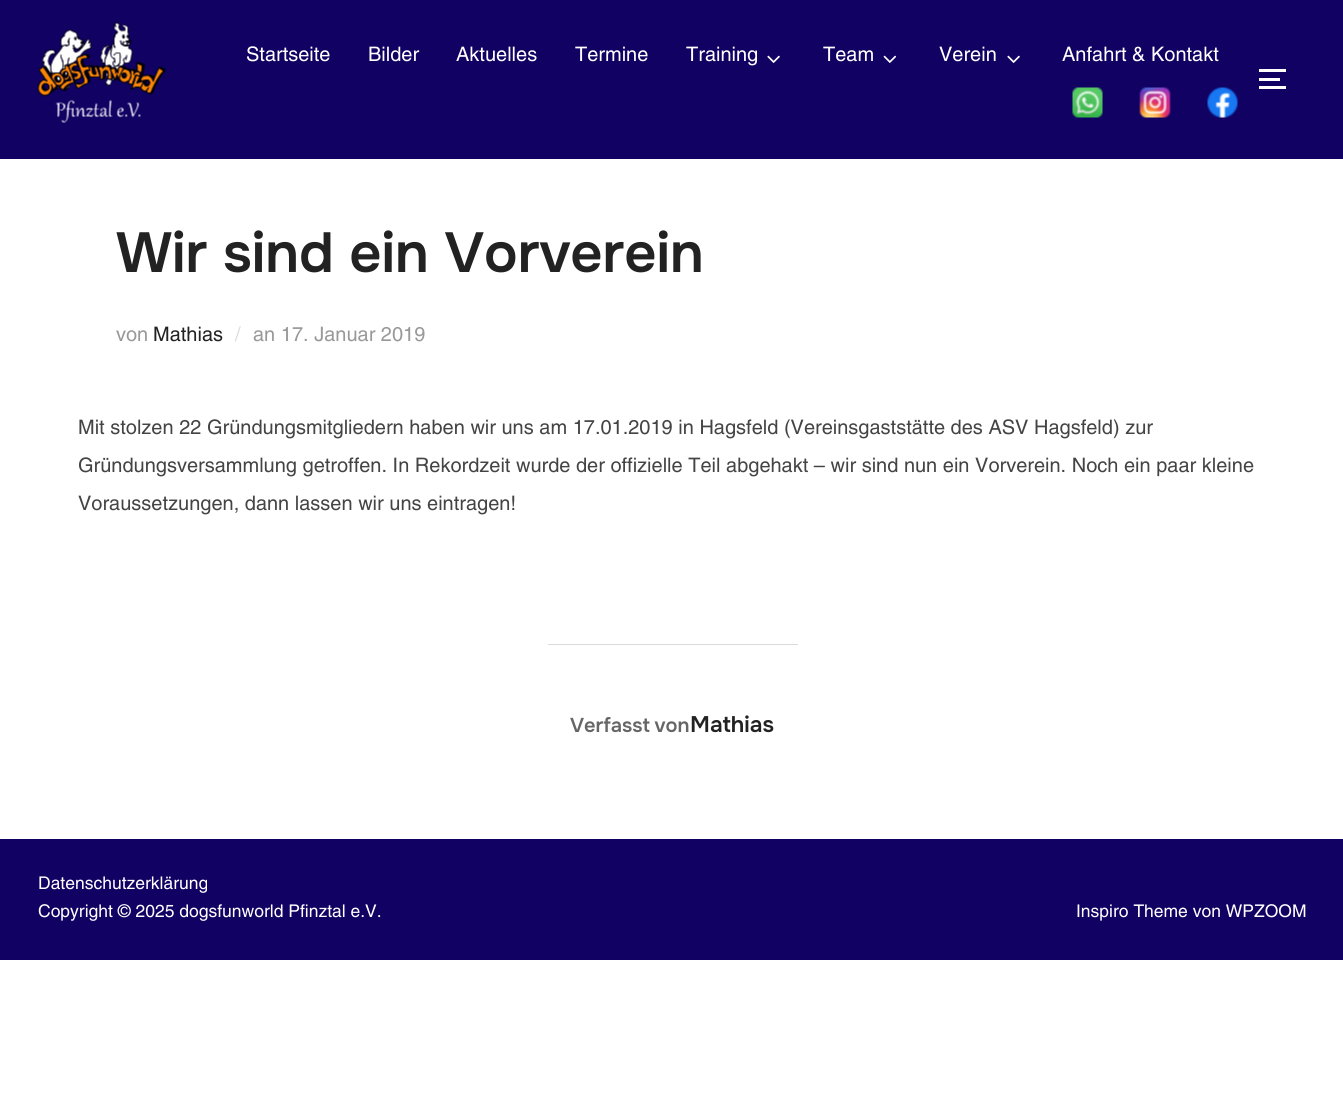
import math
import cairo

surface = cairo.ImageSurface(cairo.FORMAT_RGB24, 1343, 1102)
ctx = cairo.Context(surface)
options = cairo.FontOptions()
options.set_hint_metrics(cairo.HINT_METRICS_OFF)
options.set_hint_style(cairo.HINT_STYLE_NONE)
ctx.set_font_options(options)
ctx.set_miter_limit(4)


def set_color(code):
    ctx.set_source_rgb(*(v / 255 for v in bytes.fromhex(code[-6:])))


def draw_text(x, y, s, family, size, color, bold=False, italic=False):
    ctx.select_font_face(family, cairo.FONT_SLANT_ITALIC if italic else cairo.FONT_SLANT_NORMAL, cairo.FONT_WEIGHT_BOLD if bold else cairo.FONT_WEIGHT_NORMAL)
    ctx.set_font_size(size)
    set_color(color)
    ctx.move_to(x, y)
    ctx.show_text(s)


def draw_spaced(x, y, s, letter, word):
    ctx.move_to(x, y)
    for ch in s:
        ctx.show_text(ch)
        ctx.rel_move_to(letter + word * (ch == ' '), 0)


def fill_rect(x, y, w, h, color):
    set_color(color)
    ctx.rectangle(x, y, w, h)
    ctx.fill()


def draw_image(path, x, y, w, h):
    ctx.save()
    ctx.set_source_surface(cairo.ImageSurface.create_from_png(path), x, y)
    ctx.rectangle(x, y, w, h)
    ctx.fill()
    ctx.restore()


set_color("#ffffff")
ctx.paint()
fill_rect(0, 0, 1343, 159, "#100163")
draw_image("assets/img1.png", 37, 22, 130, 101)
draw_text(246, 61, "Startseite", "Helvetica", 20, "#ffffff")
draw_text(368, 61, "Bilder", "Helvetica", 20, "#ffffff")
draw_text(456, 61, "Aktuelles", "Helvetica", 20, "#ffffff")
draw_text(575, 61, "Termine", "Helvetica", 20, "#ffffff")
draw_text(686, 61, "Training", "Helvetica", 20, "#ffffff")
draw_image("assets/img2.png", 767, 55, 13, 8)
draw_text(823, 61, "Team", "Helvetica", 20, "#ffffff")
draw_image("assets/img3.png", 883, 55, 14, 8)
draw_text(939, 61, "Verein", "Helvetica", 20, "#ffffff")
draw_image("assets/img2.png", 1007, 55, 13, 8)
draw_text(1062, 61, "Anfahrt & Kontakt", "Helvetica", 20, "#ffffff")
draw_image("assets/img4.png", 1072, 87, 31, 31)
draw_image("assets/img5.png", 1139, 87, 32, 31)
draw_image("assets/img6.png", 1207, 87, 31, 31)
fill_rect(1259, 69, 27, 3, "#ffffff")
fill_rect(1259, 78, 21, 3, "#ffffff")
fill_rect(1259, 86, 27, 3, "#ffffff")
draw_text(116, 272, "Wir sind ein Vorverein", "Onest SemiBold", 56.25, "#222222")
draw_text(116, 341, "von", "Helvetica", 20, "#999999")
draw_text(153, 341, "Mathias", "Helvetica", 20, "#222222")
draw_text(235, 341, "/", "Helvetica", 20, "#dbdddd")
draw_text(253, 341, "an 17. Januar 2019", "Helvetica", 20, "#999999")
draw_text(78, 434, "Mit stolzen 22 Gründungsmitgliedern haben wir uns am 17.01.2019 in Hagsfeld (Vereinsgaststätte des ASV Hagsfeld) zur", "Helvetica", 20, "#444444")
draw_text(78, 472, "Gründungsversammlung getroffen. In Rekordzeit wurde der offizielle Teil abgehakt – wir sind nun ein Vorverein. Noch ein paar kleine", "Helvetica", 20, "#444444")
draw_text(78, 510, "Voraussetzungen, dann lassen wir uns eintragen!", "Helvetica", 20, "#444444")
fill_rect(548, 644, 250, 1, "#dbdbdb")
ctx.select_font_face("Onest SemiBold")
set_color("#666666")
draw_spaced(570, 732, "Verfasst von", 0, -1)
draw_text(690, 732, "Mathias", "Onest SemiBold", 22.5, "#222222")
fill_rect(0, 839, 1343, 121, "#100163")
draw_text(38, 889, "Datenschutzerklärung", "Helvetica", 17.5, "#ffffff")
draw_text(38, 917, "Copyright © 2025 dogsfunworld Pfinztal e.V.", "Helvetica", 17.5, "#ffffff")
draw_text(1076, 917, "Inspiro Theme von WPZOOM", "Helvetica", 17.5, "#ffffff")
surface.write_to_png("output.png")
